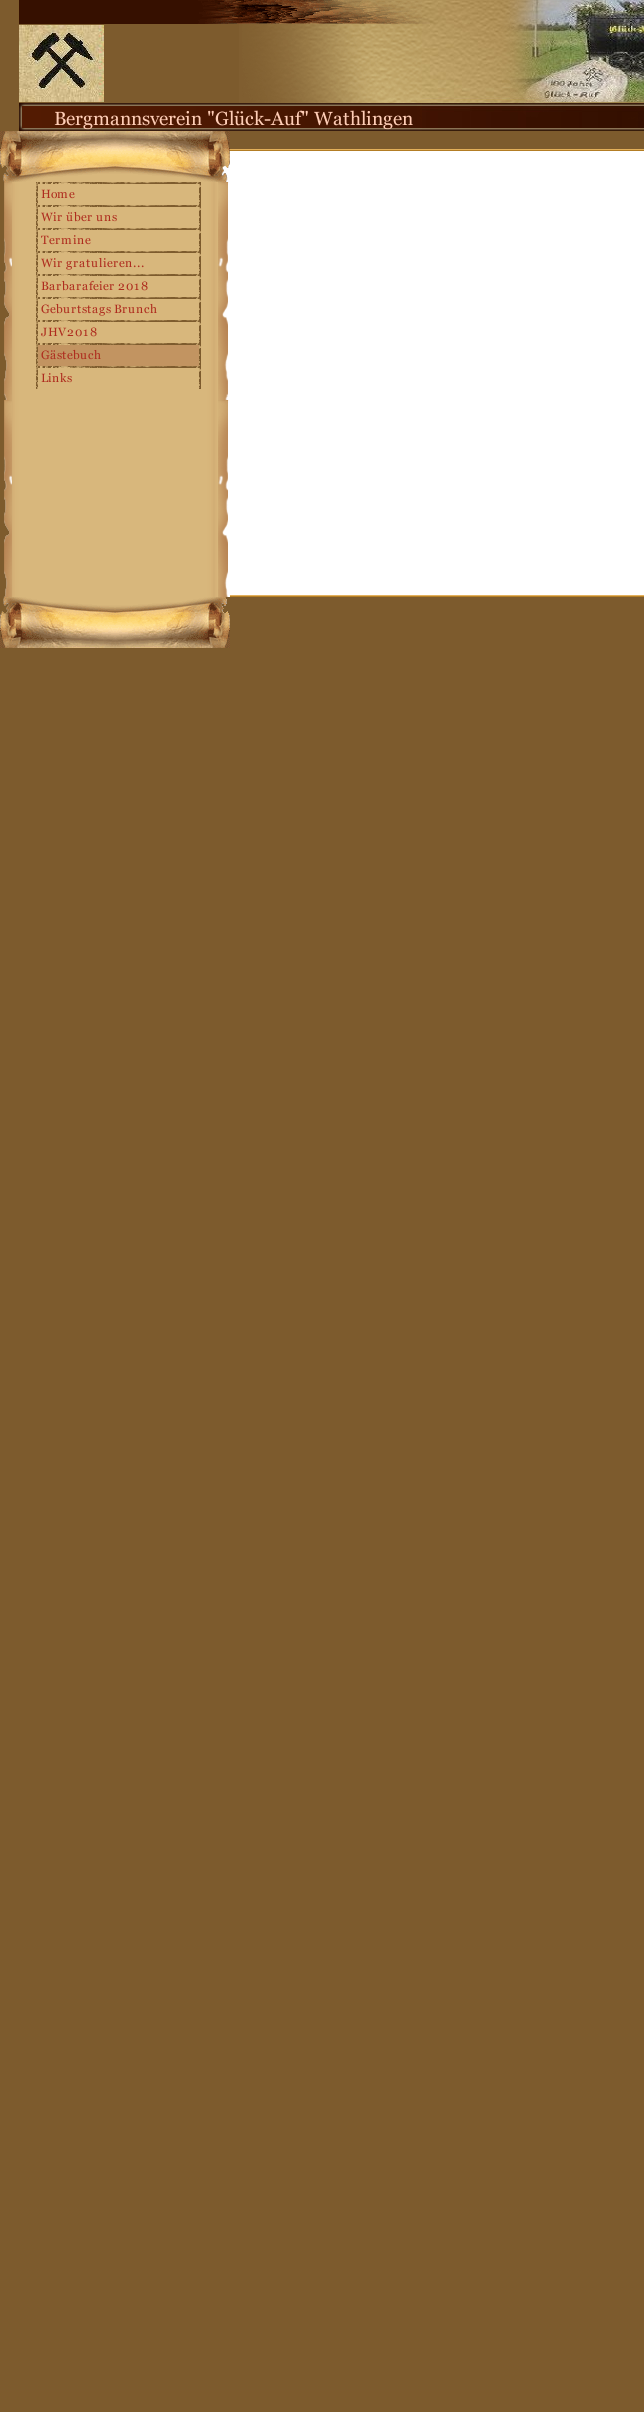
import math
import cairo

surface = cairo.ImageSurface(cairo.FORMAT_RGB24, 644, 2412)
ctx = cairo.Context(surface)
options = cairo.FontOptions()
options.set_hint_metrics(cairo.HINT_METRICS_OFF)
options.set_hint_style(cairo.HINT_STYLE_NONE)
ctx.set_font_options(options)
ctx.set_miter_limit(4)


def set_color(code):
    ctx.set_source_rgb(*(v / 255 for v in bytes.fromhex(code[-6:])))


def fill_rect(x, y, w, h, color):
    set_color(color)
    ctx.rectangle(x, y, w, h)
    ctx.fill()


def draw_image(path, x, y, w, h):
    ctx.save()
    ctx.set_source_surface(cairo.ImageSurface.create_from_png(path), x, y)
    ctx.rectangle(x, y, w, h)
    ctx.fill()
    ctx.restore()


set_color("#7d5b2d")
ctx.paint()
fill_rect(239, 24, 3, 83, "#805e30")
draw_image("assets/img1.png", 19, 0, 403, 24)
draw_image("assets/img2.png", 19, 25, 85, 77)
draw_image("assets/img3.png", 242, 24, 180, 79)
draw_image("assets/img4.png", 19, 103, 403, 28)
draw_image("assets/img5.png", 422, 0, 222, 131)
draw_image("assets/img6.png", 0, 131, 230, 51)
draw_image("assets/img7.png", 230, 149, 414, 33)
draw_image("assets/img8.png", 4, 182, 8, 415)
draw_image("assets/img9.png", 12, 182, 206, 387)
draw_image("assets/img10.png", 36, 182, 165, 23)
draw_image("assets/img11.png", 36, 205, 165, 23)
draw_image("assets/img12.png", 36, 228, 165, 23)
draw_image("assets/img13.png", 36, 251, 165, 23)
draw_image("assets/img14.png", 36, 274, 165, 23)
draw_image("assets/img15.png", 36, 297, 165, 23)
draw_image("assets/img16.png", 36, 320, 165, 23)
draw_image("assets/img17.png", 36, 343, 165, 23)
draw_image("assets/img18.png", 36, 366, 165, 23)
draw_image("assets/img19.png", 218, 182, 12, 415)
fill_rect(230, 182, 414, 387, "#ffffff")
draw_image("assets/img20.png", 12, 569, 206, 28)
draw_image("assets/img21.png", 230, 569, 414, 28)
draw_image("assets/img22.png", 0, 597, 230, 51)
surface.write_to_png("output.png")
